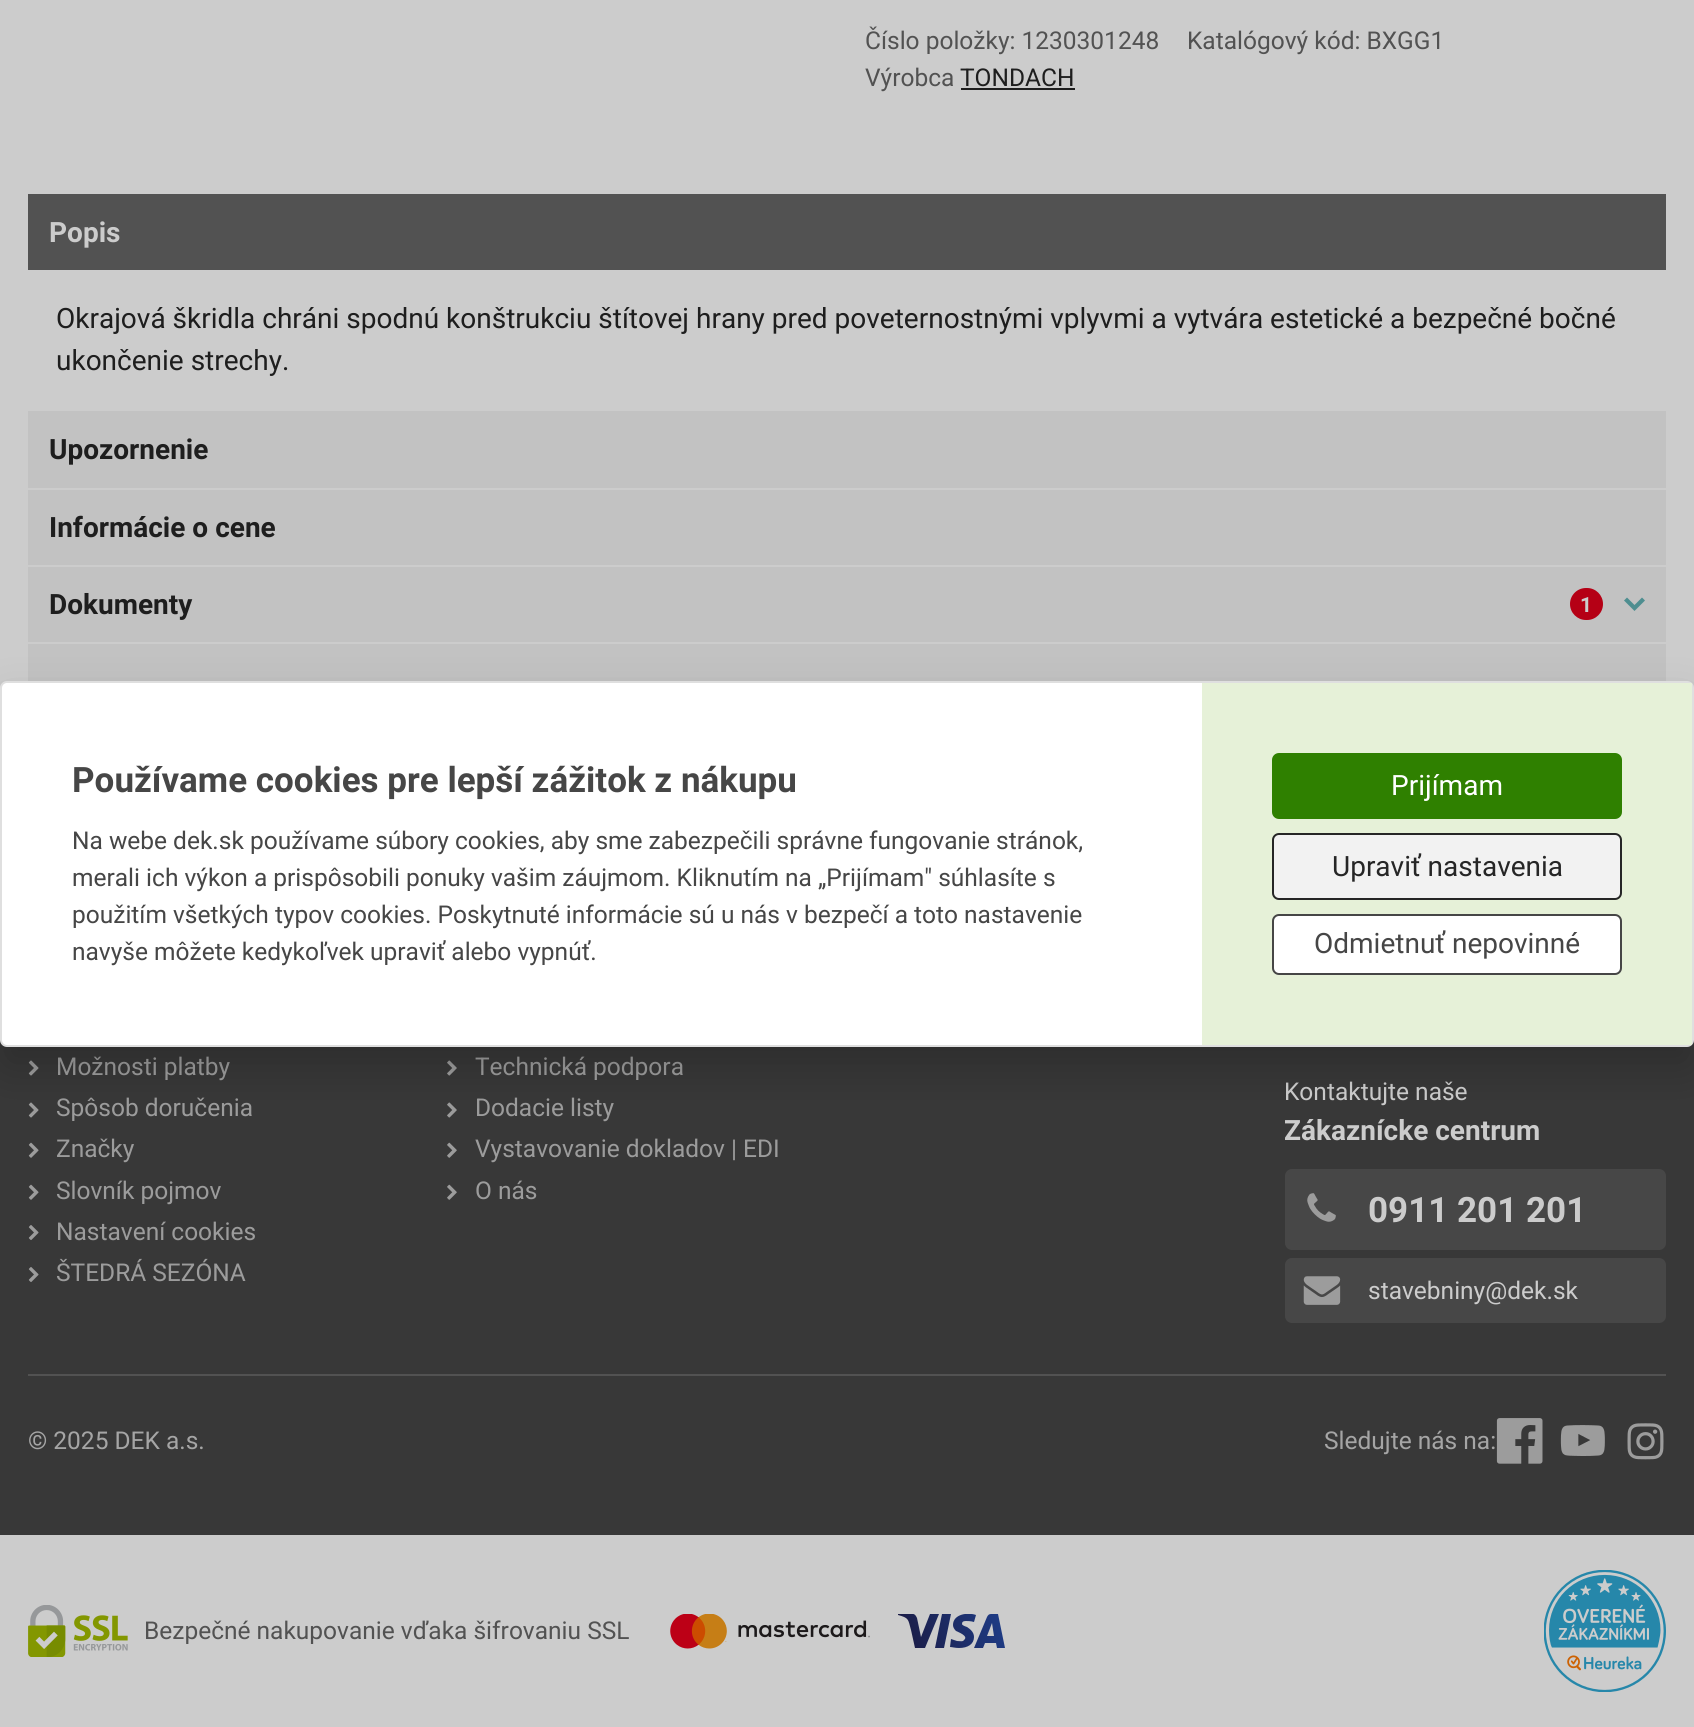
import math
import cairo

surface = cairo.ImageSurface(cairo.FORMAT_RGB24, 1694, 1727)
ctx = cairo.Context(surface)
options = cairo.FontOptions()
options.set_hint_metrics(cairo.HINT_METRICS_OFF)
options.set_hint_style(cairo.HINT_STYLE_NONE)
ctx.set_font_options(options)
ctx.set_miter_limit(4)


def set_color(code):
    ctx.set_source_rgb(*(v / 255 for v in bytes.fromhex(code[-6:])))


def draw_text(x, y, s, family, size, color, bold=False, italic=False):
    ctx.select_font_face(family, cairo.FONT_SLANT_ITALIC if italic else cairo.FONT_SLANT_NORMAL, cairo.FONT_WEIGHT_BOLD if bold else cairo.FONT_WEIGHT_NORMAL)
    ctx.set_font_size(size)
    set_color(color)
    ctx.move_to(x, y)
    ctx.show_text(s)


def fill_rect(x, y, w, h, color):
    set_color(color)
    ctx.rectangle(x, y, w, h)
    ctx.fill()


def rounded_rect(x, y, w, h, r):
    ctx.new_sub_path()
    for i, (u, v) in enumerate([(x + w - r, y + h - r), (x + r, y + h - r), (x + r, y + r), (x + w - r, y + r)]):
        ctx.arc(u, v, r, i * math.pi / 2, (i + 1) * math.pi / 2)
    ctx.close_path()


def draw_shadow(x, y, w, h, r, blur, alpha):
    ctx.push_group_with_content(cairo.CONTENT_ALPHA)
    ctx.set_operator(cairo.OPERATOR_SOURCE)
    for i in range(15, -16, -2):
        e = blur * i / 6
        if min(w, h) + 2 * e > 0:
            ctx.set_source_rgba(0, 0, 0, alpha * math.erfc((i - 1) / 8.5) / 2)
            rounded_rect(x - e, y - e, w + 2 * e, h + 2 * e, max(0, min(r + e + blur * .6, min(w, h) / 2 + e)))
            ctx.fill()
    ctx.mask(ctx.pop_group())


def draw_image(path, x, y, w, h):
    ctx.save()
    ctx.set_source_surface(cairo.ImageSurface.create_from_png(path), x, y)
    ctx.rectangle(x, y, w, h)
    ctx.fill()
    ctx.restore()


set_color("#cccccc")
ctx.paint()
draw_text(865, 49, "Číslo položky: 1230301248", "Roboto", 24.5, "#525252")
draw_text(1187, 49, "Katalógový kód: BXGG1", "Roboto", 24.5, "#525252")
draw_text(865, 86, "Výrobca", "Roboto", 24.5, "#525252")
draw_text(960, 86, "TONDACH", "Roboto", 24.5, "#1e1e1e")
fill_rect(961, 88, 114, 2, "#1e1e1e")
fill_rect(28, 194, 1638, 76, "#525252")
draw_text(49, 242, "Popis", "Roboto", 28, "#cccccc", bold=True)
draw_text(56, 328, "Okrajová škridla chráni spodnú konštrukciu štítovej hrany pred poveternostnými vplyvmi a vytvára estetické a bezpečné bočné", "Roboto", 28, "#1e1e1e")
draw_text(56, 370, "ukončenie strechy.", "Roboto", 28, "#1e1e1e")
fill_rect(28, 411, 1638, 77, "#c2c2c2")
draw_text(49, 459, "Upozornenie", "Roboto", 28, "#1e1e1e", bold=True)
fill_rect(28, 490, 1638, 75, "#c2c2c2")
draw_text(49, 537, "Informácie o cene", "Roboto", 28, "#1e1e1e", bold=True)
fill_rect(28, 567, 1638, 75, "#c2c2c2")
draw_text(49, 614, "Dokumenty", "Roboto", 28, "#1e1e1e", bold=True)
set_color("#b50015")
rounded_rect(1570, 588, 33, 32, 16)
ctx.fill()
draw_text(1580, 612, "1", "Roboto", 21, "#cccccc", bold=True)
set_color("#4e8e90")
ctx.new_path()
ctx.move_to(1624, 600.5)
ctx.line_to(1627, 597.5)
ctx.line_to(1634.5, 605)
ctx.line_to(1642, 597.5)
ctx.line_to(1645, 600.5)
ctx.line_to(1634.5, 611)
ctx.close_path()
ctx.fill()
fill_rect(28, 644, 1638, 37, "#c2c2c2")
fill_rect(0, 1040, 1694, 495, "#383838")
fill_rect(28, 1374, 1638, 2, "#525252")
draw_image("assets/img1.png", 28, 1060, 11, 16)
draw_text(56, 1075, "Možnosti platby", "Roboto", 24.5, "#9c9c9c")
draw_image("assets/img1.png", 28, 1102, 11, 16)
draw_text(56, 1116, "Spôsob doručenia", "Roboto", 24.5, "#9c9c9c")
draw_image("assets/img2.png", 28, 1142, 11, 16)
draw_text(56, 1157, "Značky", "Roboto", 24.5, "#9c9c9c")
draw_image("assets/img2.png", 28, 1184, 11, 16)
draw_text(56, 1199, "Slovník pojmov", "Roboto", 24.5, "#9c9c9c")
draw_image("assets/img3.png", 28, 1225, 11, 15)
draw_text(56, 1240, "Nastavení cookies", "Roboto", 24.5, "#9c9c9c")
draw_image("assets/img3.png", 28, 1267, 11, 15)
draw_text(56, 1281, "ŠTEDRÁ SEZÓNA", "Roboto", 24.5, "#9c9c9c")
draw_image("assets/img4.png", 447, 1060, 10, 16)
draw_text(475, 1075, "Technická podpora", "Roboto", 24.5, "#9c9c9c")
draw_image("assets/img4.png", 447, 1102, 10, 16)
draw_text(475, 1116, "Dodacie listy", "Roboto", 24.5, "#9c9c9c")
draw_image("assets/img5.png", 447, 1142, 10, 16)
draw_text(475, 1157, "Vystavovanie dokladov | EDI", "Roboto", 24.5, "#9c9c9c")
draw_image("assets/img5.png", 447, 1184, 10, 16)
draw_text(475, 1199, "O nás", "Roboto", 24.5, "#9c9c9c")
draw_text(1284, 1100, "Kontaktujte naše", "Roboto", 24.5, "#cccccc")
draw_text(1284, 1140, "Zákaznícke centrum", "Roboto", 28, "#cccccc", bold=True)
set_color("#474747")
rounded_rect(1285, 1169, 381, 81, 7)
ctx.fill()
draw_image("assets/img6.png", 1307, 1193, 29, 29)
draw_text(1368, 1222, "0911 201 201", "Roboto", 35, "#cccccc", bold=True)
set_color("#474747")
rounded_rect(1285, 1258, 381, 65, 7)
ctx.fill()
draw_image("assets/img7.png", 1303, 1276, 38, 29)
draw_text(1368, 1299, "stavebniny@dek.sk", "Roboto", 24.5, "#cccccc")
draw_text(28, 1449, "© 2025 DEK a.s.", "Roboto", 24.5, "#a5a5a5")
draw_text(1324, 1449, "Sledujte nás na:", "Roboto", 24.5, "#a5a5a5")
draw_image("assets/img8.png", 1496, 1418, 47, 46)
draw_image("assets/img9.png", 1560, 1425, 45, 31)
draw_image("assets/img10.png", 1627, 1423, 37, 37)
draw_image("assets/img11.png", 28, 1605, 100, 52)
draw_text(144, 1639, "Bezpečné nakupovanie vďaka šifrovaniu SSL", "Roboto", 24.5, "#525252")
draw_image("assets/img12.png", 670, 1614, 200, 35)
ctx.save()
ctx.rectangle(898, 1614, 108, 35)
ctx.clip()
gradient = cairo.LinearGradient(908, 1647, 998, 1614)
gradient.add_color_stop_rgba(0, 0.106, 0.11, 0.275, 1)
gradient.add_color_stop_rgba(1, 0.118, 0.231, 0.518, 1)
ctx.set_source(gradient)
ctx.set_fill_rule(cairo.FILL_RULE_EVEN_ODD)
ctx.new_path()
ctx.move_to(953, 1625)
ctx.curve_to(953, 1614, 968, 1612, 976, 1615)
ctx.line_to(974, 1622)
ctx.curve_to(971, 1621, 967, 1621, 966, 1621)
ctx.curve_to(963, 1621, 962, 1622, 962, 1624)
ctx.curve_to(962, 1625, 964, 1626, 967, 1627)
ctx.curve_to(970, 1629, 974, 1632, 974, 1637)
ctx.curve_to(974, 1644, 968, 1648, 959, 1648)
ctx.curve_to(955, 1648, 952, 1647, 950, 1647)
ctx.line_to(951, 1639)
ctx.line_to(957, 1641)
ctx.curve_to(960, 1641, 963, 1642, 964, 1640)
ctx.curve_to(969, 1636, 958, 1632, 956, 1631)
ctx.curve_to(954, 1629, 953, 1627, 953, 1625)
ctx.close_path()
ctx.move_to(930, 1614)
ctx.line_to(939, 1614)
ctx.line_to(925, 1648)
ctx.line_to(915, 1648)
ctx.line_to(911, 1630)
ctx.curve_to(908, 1619, 909, 1618, 898, 1615)
ctx.line_to(898, 1614)
ctx.line_to(913, 1614)
ctx.curve_to(915, 1614, 916, 1616, 917, 1618)
ctx.line_to(921, 1637)
ctx.close_path()
ctx.move_to(942, 1614)
ctx.line_to(951, 1614)
ctx.line_to(944, 1648)
ctx.line_to(935, 1648)
ctx.close_path()
ctx.move_to(991, 1614)
ctx.line_to(998, 1614)
ctx.line_to(1005, 1648)
ctx.line_to(997, 1648)
ctx.line_to(996, 1643)
ctx.line_to(985, 1643)
ctx.line_to(983, 1648)
ctx.line_to(974, 1648)
ctx.line_to(987, 1617)
ctx.curve_to(988, 1615, 989, 1614, 991, 1614)
ctx.close_path()
ctx.move_to(992, 1623)
ctx.line_to(987, 1636)
ctx.line_to(994, 1636)
ctx.close_path()
ctx.fill()
ctx.restore()
draw_image("assets/img13.png", 1544, 1570, 122, 122)
set_color("#000000")
draw_shadow(0, 702, 1694, 366, 7, 21, 0.2)
set_color("#ffffff")
rounded_rect(1, 682, 1692, 364, 6)
ctx.fill_preserve()
set_color("#dfdfdf")
ctx.stroke()
draw_text(72, 792, "Používame cookies pre lepší zážitok z nákupu", "Roboto", 35, "#464646", bold=True)
draw_text(72, 849, "Na webe dek.sk používame súbory cookies, aby sme zabezpečili správne fungovanie stránok,", "Roboto", 24.5, "#464646")
draw_text(72, 886, "merali ich výkon a prispôsobili ponuky vašim záujmom. Kliknutím na „Prijímam\" súhlasíte s", "Roboto", 24.5, "#464646")
draw_text(72, 923, "použitím všetkých typov cookies. Poskytnuté informácie sú u nás v bezpečí a toto nastavenie", "Roboto", 24.5, "#464646")
draw_text(72, 960, "navyše môžete kedykoľvek upraviť alebo vypnúť.", "Roboto", 24.5, "#464646")
fill_rect(1202, 683, 490, 362, "#e6f1d8")
set_color("#2f8000")
rounded_rect(1273, 754, 348, 64, 6)
ctx.fill_preserve()
ctx.stroke()
draw_text(1391, 795, "Prijímam", "Roboto", 28, "#ffffff")
set_color("#f2f2f2")
rounded_rect(1273, 834, 348, 65, 6)
ctx.fill_preserve()
set_color("#262626")
ctx.stroke()
draw_text(1332, 876, "Upraviť nastavenia", "Roboto", 28, "#262626")
set_color("#ffffff")
rounded_rect(1273, 915, 348, 59, 6)
ctx.fill_preserve()
set_color("#464646")
ctx.stroke()
draw_text(1314, 953, "Odmietnuť nepovinné", "Roboto", 28, "#464646")
surface.write_to_png("output.png")
